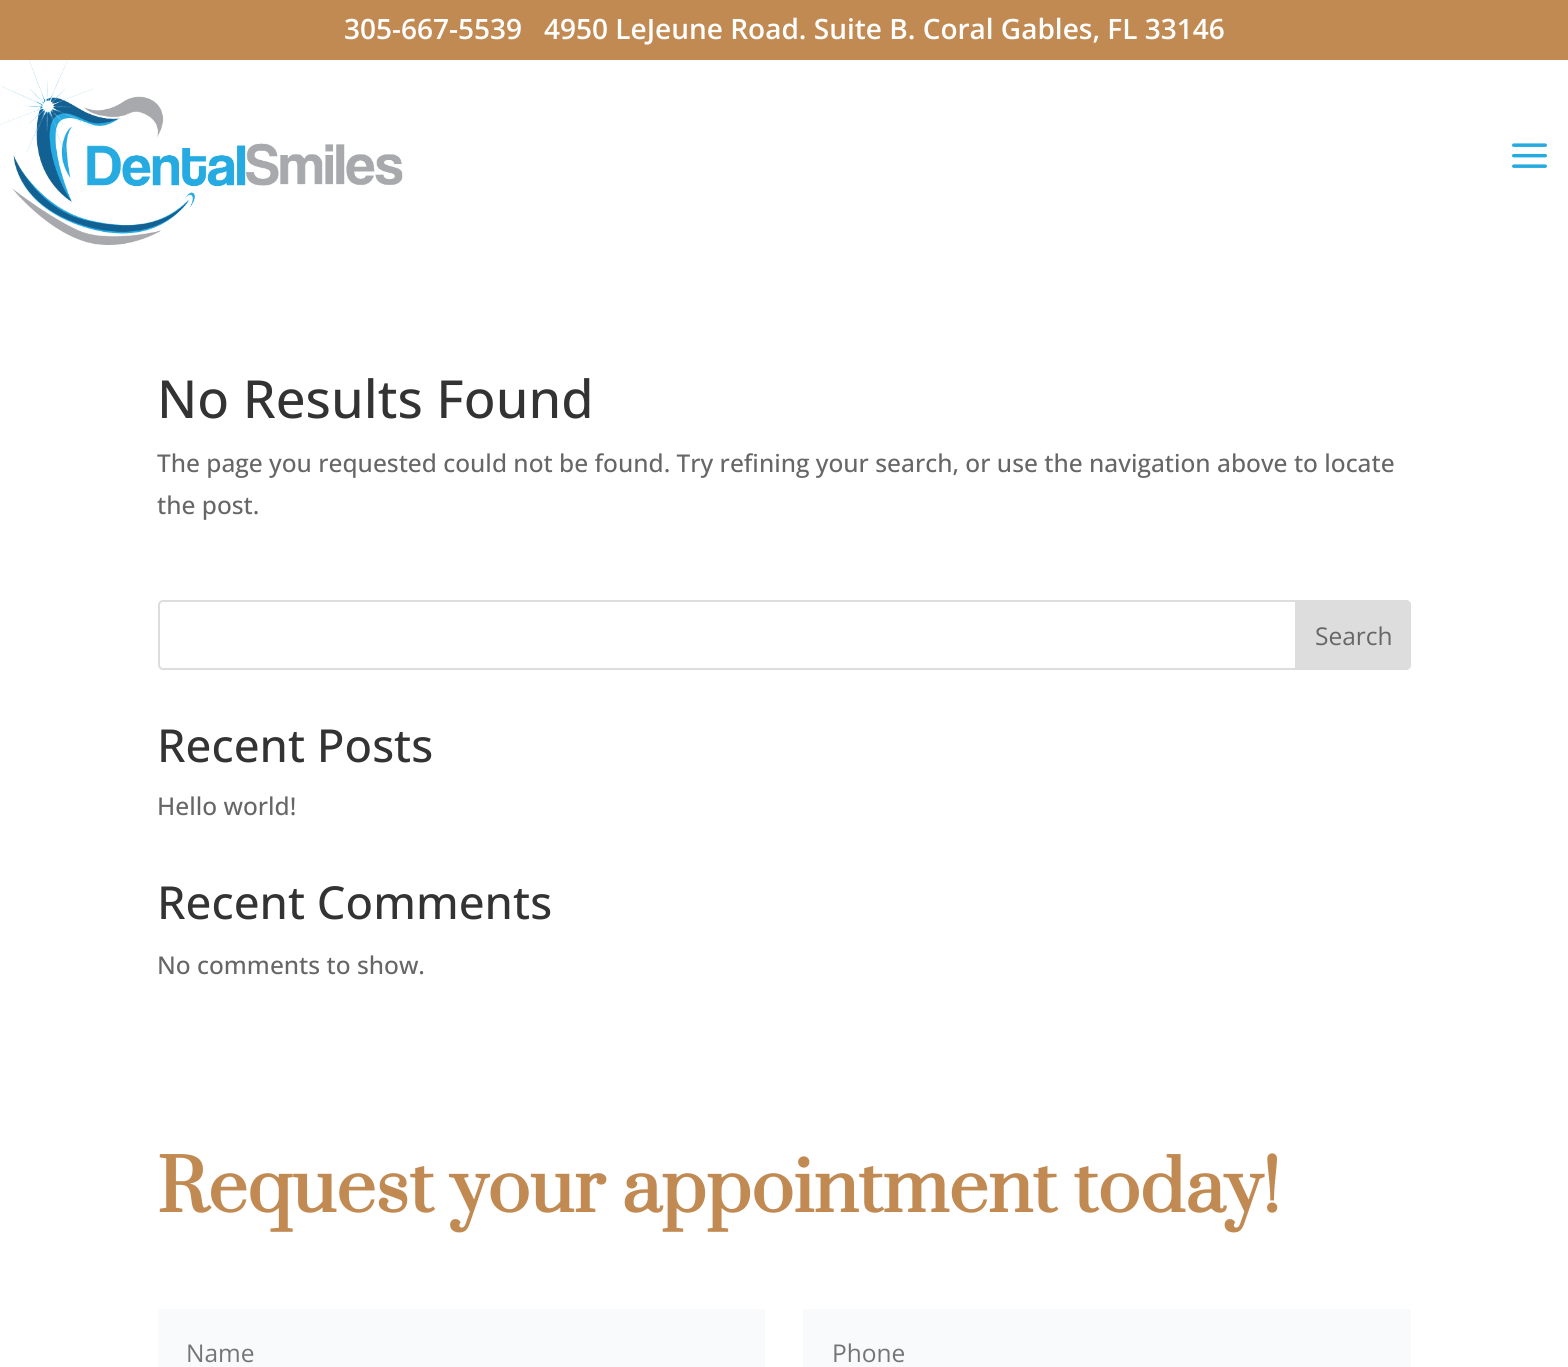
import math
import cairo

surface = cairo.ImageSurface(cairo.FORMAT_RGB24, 1568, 1367)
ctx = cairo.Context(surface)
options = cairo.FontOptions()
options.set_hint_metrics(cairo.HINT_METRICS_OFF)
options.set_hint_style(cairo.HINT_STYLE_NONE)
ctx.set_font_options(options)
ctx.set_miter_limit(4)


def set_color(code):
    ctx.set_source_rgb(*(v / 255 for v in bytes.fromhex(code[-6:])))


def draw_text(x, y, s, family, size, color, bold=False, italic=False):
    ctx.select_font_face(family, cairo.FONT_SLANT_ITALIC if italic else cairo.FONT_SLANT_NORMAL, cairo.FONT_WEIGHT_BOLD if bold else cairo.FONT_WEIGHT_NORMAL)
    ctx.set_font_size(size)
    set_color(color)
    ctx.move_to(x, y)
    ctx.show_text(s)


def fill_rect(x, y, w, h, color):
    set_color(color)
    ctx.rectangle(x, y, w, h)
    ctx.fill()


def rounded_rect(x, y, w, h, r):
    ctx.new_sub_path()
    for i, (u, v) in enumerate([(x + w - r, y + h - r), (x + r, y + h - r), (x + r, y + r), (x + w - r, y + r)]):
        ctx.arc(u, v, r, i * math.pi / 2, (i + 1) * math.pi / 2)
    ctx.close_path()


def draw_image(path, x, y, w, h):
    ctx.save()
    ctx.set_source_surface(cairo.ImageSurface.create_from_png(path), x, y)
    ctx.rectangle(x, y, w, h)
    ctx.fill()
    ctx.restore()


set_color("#ffffff")
ctx.paint()
fill_rect(0, 0, 1568, 60, "#c18a53")
draw_text(344, 39, "305-667-5539", "Open Sans SemiBold", 28, "#ffffff")
draw_text(544, 39, "4950 LeJeune Road. Suite B. Coral Gables, FL 33146", "Open Sans SemiBold", 28, "#ffffff")
draw_image("assets/img1.png", 0, 60, 403, 185)
draw_image("assets/img2.png", 1512, 143, 35, 25)
draw_text(157, 418, "No Results Found", "Open Sans Medium", 52.5, "#333333")
draw_text(157, 472, "The page you requested could not be found. Try refining your search, or use the navigation above to locate", "Open Sans Medium", 24.5, "#666666")
draw_text(157, 514, "the post.", "Open Sans Medium", 24.5, "#666666")
rounded_rect(159, 601, 1251, 68, 4)
set_color("#dddddd")
ctx.stroke()
ctx.new_path()
ctx.move_to(1296, 601)
ctx.line_to(1406, 601)
ctx.curve_to(1408, 601, 1410, 603, 1410, 605)
ctx.line_to(1410, 665)
ctx.curve_to(1410, 667, 1408, 669, 1406, 669)
ctx.line_to(1296, 669)
ctx.close_path()
ctx.fill_preserve()
ctx.stroke()
draw_text(1315, 645, "Search", "Open Sans", 24.5, "#666666")
draw_text(157, 762, "Recent Posts", "Open Sans Medium", 45.5, "#333333")
draw_text(157, 815, "Hello world!", "Open Sans Medium", 24.5, "#666666")
draw_text(157, 919, "Recent Comments", "Open Sans Medium", 45.5, "#333333")
draw_text(157, 974, "No comments to show.", "Open Sans Medium", 24.5, "#666666")
draw_text(157, 1212, "Request your appointment today!", "Prata", 70, "#c18a53", bold=True)
fill_rect(158, 1309, 607, 58, "#f9fafc")
draw_text(186, 1362, "Name", "Open Sans", 24.5, "#757575")
fill_rect(803, 1309, 608, 58, "#f9fafc")
draw_text(832, 1362, "Phone", "Open Sans", 24.5, "#757575")
surface.write_to_png("output.png")
